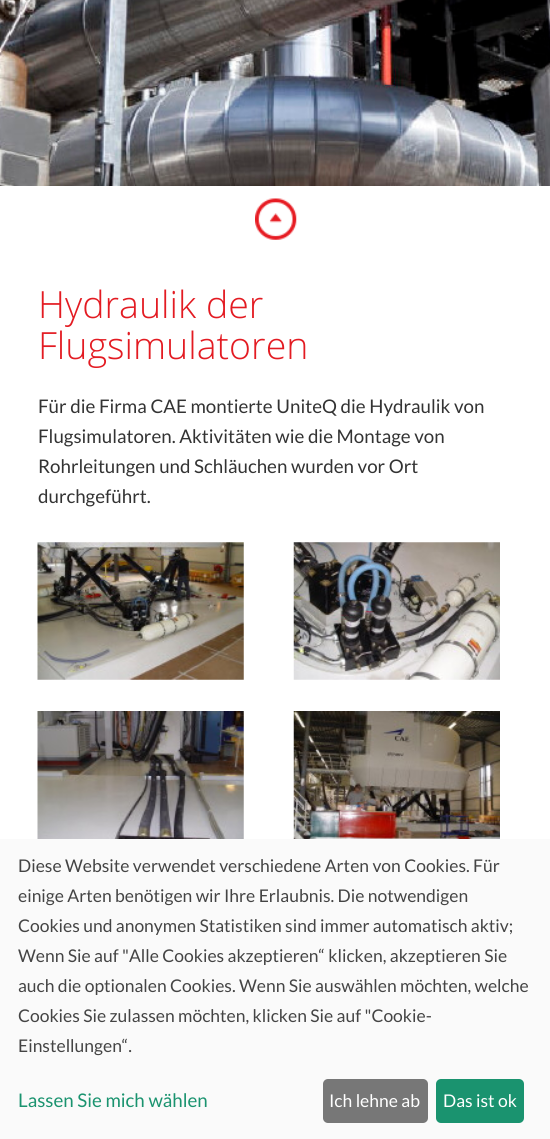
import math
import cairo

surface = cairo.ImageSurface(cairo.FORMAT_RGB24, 550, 1139)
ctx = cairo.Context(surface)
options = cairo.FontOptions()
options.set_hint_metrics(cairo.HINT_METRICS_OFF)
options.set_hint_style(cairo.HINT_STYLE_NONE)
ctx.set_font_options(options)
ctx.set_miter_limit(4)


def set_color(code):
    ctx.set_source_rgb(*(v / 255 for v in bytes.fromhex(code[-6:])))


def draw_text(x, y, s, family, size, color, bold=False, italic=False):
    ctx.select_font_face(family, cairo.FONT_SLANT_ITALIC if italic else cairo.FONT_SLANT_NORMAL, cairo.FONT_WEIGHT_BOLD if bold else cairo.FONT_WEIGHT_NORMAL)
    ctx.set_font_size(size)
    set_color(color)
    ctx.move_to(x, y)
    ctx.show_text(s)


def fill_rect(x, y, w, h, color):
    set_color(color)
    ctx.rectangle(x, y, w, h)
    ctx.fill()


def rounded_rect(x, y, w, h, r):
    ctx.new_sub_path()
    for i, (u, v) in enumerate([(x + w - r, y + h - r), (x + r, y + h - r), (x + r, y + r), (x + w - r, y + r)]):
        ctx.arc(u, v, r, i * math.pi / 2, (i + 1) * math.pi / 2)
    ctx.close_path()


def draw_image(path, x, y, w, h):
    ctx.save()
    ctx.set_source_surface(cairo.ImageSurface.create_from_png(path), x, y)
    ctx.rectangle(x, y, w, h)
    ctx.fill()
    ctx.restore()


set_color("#ffffff")
ctx.paint()
draw_image("assets/img1.png", 0, 0, 550, 186)
draw_image("assets/img2.png", 255, 198, 42, 42)
draw_text(38, 318, "Hydraulik der", "Open Sans Light", 37.5, "#e31b22")
draw_text(38, 359, "Flugsimulatoren", "Open Sans Light", 37.5, "#e31b22")
draw_text(38, 413, "Für die Firma CAE montierte UniteQ die Hydraulik von", "Lato", 18.75, "#333333")
draw_text(38, 443, "Flugsimulatoren. Aktivitäten wie die Montage von", "Lato", 18.75, "#333333")
draw_text(38, 473, "Rohrleitungen und Schläuchen wurden vor Ort", "Lato", 18.75, "#333333")
draw_text(38, 503, "durchgeführt.", "Lato", 18.75, "#333333")
draw_image("assets/img3.png", 37, 542, 207, 138)
draw_image("assets/img4.png", 293, 542, 207, 138)
draw_image("assets/img5.png", 37, 711, 207, 128)
draw_image("assets/img6.png", 293, 711, 207, 128)
fill_rect(0, 839, 550, 300, "#fafafa")
draw_text(18, 872, "Diese Website verwendet verschiedene Arten von Cookies. Für", "Lato", 17.5, "#444444")
draw_text(18, 902, "einige Arten benötigen wir Ihre Erlaubnis. Die notwendigen", "Lato", 17.5, "#444444")
draw_text(18, 932, "Cookies und anonymen Statistiken sind immer automatisch aktiv;", "Lato", 17.5, "#444444")
draw_text(18, 962, "Wenn Sie auf \"Alle Cookies akzeptieren“ klicken, akzeptieren Sie", "Lato", 17.5, "#444444")
draw_text(18, 992, "auch die optionalen Cookies. Wenn Sie auswählen möchten, welche", "Lato", 17.5, "#444444")
draw_text(18, 1022, "Cookies Sie zulassen möchten, klicken Sie auf \"Cookie-", "Lato", 17.5, "#444444")
draw_text(18, 1052, "Einstellungen“.", "Lato", 17.5, "#444444")
draw_text(18, 1107, "Lassen Sie mich wählen", "Lato", 18.75, "#1a936f")
set_color("#777777")
rounded_rect(323, 1079, 105, 44, 5)
ctx.fill()
draw_text(329, 1107, "Ich lehne ab", "Lato", 17.5, "#ffffff")
set_color("#1a936f")
rounded_rect(436, 1079, 88, 44, 5)
ctx.fill()
draw_text(443, 1107, "Das ist ok", "Lato", 17.5, "#ffffff")
surface.write_to_png("output.png")
